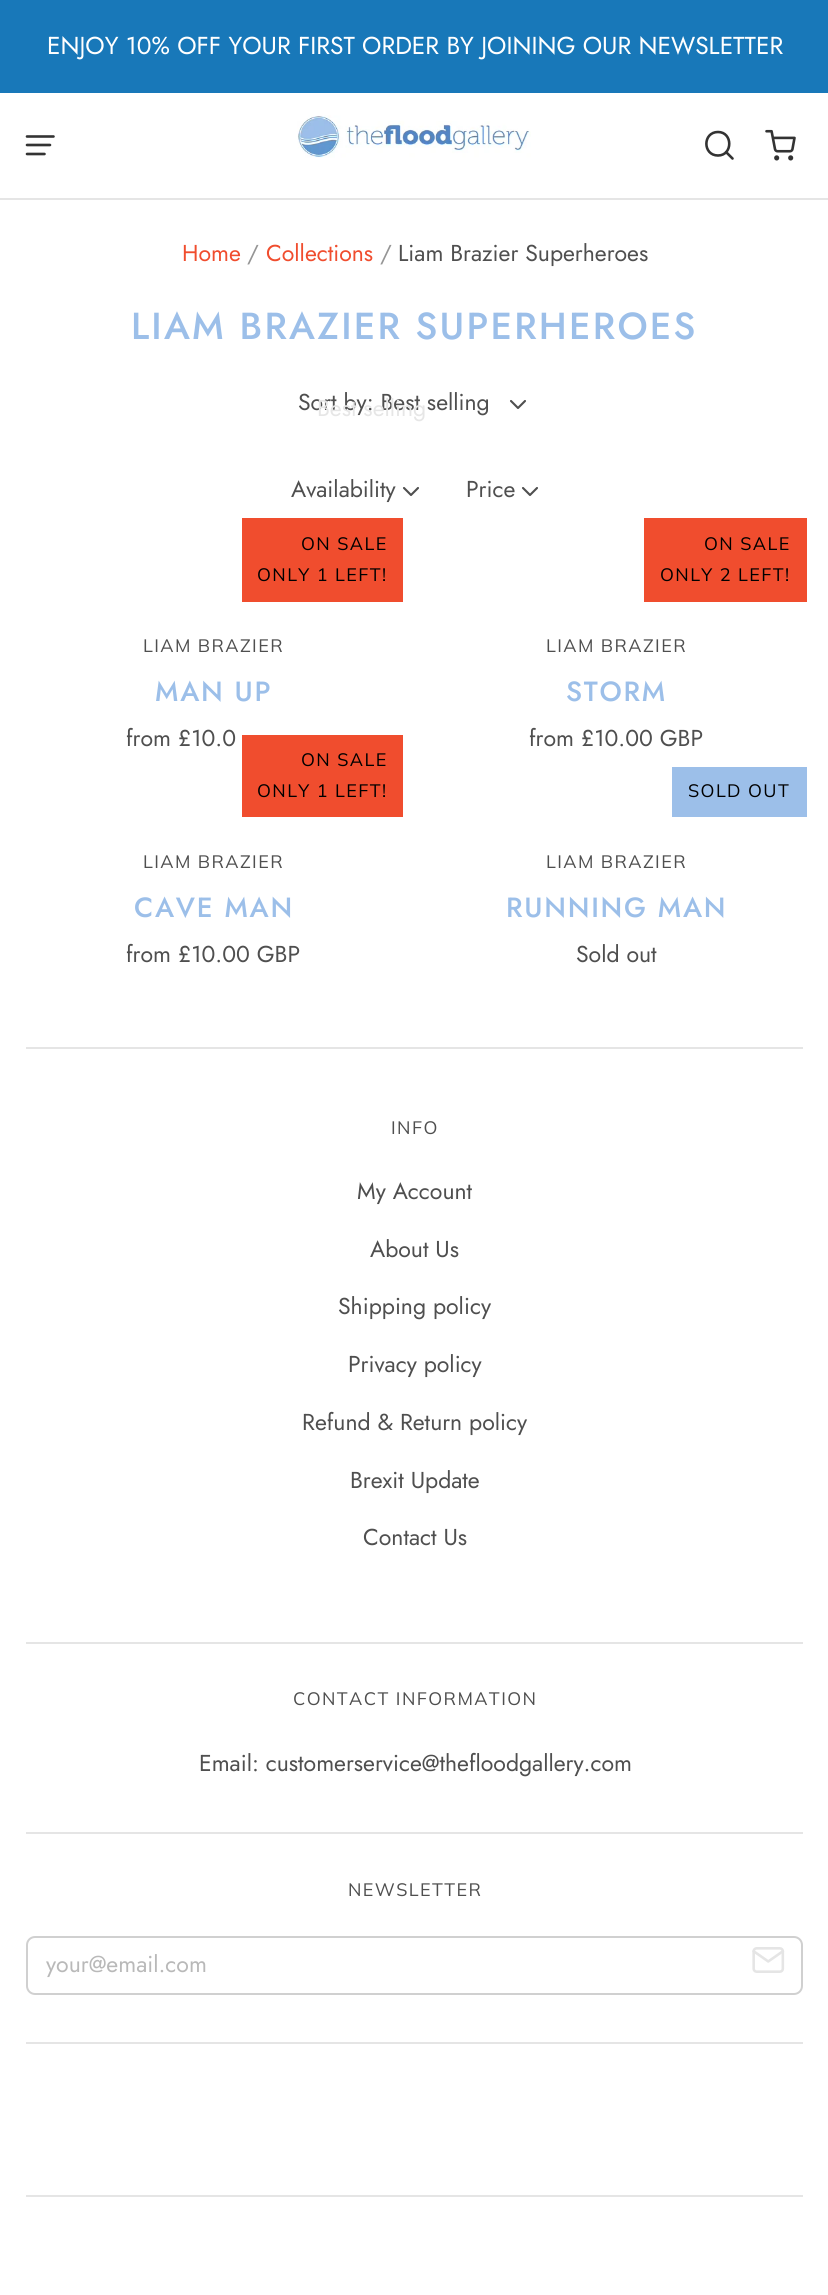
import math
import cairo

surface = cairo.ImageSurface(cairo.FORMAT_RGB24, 828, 2295)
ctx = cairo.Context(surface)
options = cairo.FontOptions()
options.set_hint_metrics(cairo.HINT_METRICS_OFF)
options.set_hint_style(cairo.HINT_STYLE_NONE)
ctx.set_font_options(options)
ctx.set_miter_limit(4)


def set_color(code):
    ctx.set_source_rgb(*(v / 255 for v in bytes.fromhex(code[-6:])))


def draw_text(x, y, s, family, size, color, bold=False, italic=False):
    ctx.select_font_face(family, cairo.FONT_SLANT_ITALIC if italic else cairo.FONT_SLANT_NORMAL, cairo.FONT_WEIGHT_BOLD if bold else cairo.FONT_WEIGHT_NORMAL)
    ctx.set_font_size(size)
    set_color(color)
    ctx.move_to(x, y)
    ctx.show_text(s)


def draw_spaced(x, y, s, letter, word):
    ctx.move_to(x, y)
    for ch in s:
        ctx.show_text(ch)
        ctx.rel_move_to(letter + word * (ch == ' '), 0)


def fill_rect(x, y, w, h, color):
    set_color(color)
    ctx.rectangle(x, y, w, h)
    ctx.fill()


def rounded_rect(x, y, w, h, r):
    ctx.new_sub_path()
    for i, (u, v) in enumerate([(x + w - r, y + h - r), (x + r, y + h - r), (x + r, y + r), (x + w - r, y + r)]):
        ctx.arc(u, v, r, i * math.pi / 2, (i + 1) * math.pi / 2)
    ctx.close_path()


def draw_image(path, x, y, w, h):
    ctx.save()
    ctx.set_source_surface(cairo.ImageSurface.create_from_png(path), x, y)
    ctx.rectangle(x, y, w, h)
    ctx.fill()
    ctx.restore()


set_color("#ffffff")
ctx.paint()
fill_rect(0, 0, 828, 93, "#1878b9")
draw_text(47, 54, "ENJOY 10% OFF YOUR FIRST ORDER BY JOINING OUR NEWSLETTER", "Jost", 24.5, "#ffffff")
fill_rect(0, 198, 828, 2, "#e5e5e5")
ctx.new_path()
ctx.move_to(27, 136.5)
ctx.line_to(53.5, 136.5)
ctx.move_to(27, 145)
ctx.line_to(50, 145)
ctx.move_to(27, 154)
ctx.line_to(44.5, 154)
set_color("#333333")
ctx.set_line_width(2.6)
ctx.set_line_cap(cairo.LINE_CAP_ROUND)
ctx.set_line_join(cairo.LINE_JOIN_ROUND)
ctx.stroke()
draw_image("assets/img1.png", 297, 115, 234, 43)
ctx.new_path()
ctx.move_to(718, 132)
ctx.curve_to(702.5, 132, 702.5, 155.5, 718, 155.5)
ctx.curve_to(733, 155.5, 733, 132, 718, 132)
ctx.close_path()
ctx.move_to(732.5, 158.5)
ctx.line_to(726, 152)
ctx.close_path()
ctx.stroke()
draw_image("assets/img2.png", 765, 129, 31, 32)
draw_text(182, 261, "Home", "Jost", 23, "#f04d2e")
draw_text(247, 261, "/", "Jost", 23, "#959595")
draw_text(266, 261, "Collections", "Jost", 23, "#f04d2e")
draw_text(380, 261, "/", "Jost", 23, "#959595")
draw_text(398, 261, "Liam Brazier Superheroes", "Jost", 23, "#4f4f4f")
ctx.select_font_face("Jost Medium")
ctx.set_font_size(37.6)
set_color("#9cbfe9")
draw_spaced(131, 339, "LIAM BRAZIER SUPERHEROES", 2.25, 0)
draw_text(298, 410, "Sort by: Best selling", "Jost", 23, "#4f4f4f")
ctx.new_path()
ctx.move_to(511, 401)
ctx.line_to(518, 408)
ctx.line_to(525, 401)
ctx.set_line_width(2.1)
ctx.stroke()
draw_text(317, 416, "Best selling", "Jost", 23, "#e6e6e6")
draw_text(291, 497, "Availability", "Jost", 23, "#4f4f4f")
ctx.new_path()
ctx.move_to(404, 488)
ctx.line_to(411, 495)
ctx.line_to(418, 488)
ctx.stroke()
draw_text(466, 497, "Price", "Jost", 23, "#4f4f4f")
ctx.new_path()
ctx.move_to(523, 488)
ctx.line_to(530, 495)
ctx.line_to(537, 488)
ctx.stroke()
fill_rect(242, 518, 161, 84, "#f04d2e")
ctx.select_font_face("Muli")
ctx.set_font_size(18)
set_color("#000000")
draw_spaced(301, 550, "ON SALE", 1.4, 0)
draw_spaced(257, 581, "ONLY 1 LEFT!", 1.4, 0)
set_color("#4f4f4f")
draw_spaced(143, 652, "LIAM BRAZIER", 1.4, 0)
ctx.select_font_face("Jost Medium")
ctx.set_font_size(27.75)
set_color("#9cbfe9")
draw_spaced(155, 701, "MAN UP", 1.75, 0)
draw_text(126, 746, "from £10.0", "Jost", 23, "#4f4f4f")
fill_rect(644, 518, 163, 84, "#f04d2e")
ctx.select_font_face("Muli")
ctx.set_font_size(18)
set_color("#000000")
draw_spaced(704, 550, "ON SALE", 1.4, 0)
draw_spaced(660, 581, "ONLY 2 LEFT!", 1.4, 0)
set_color("#4f4f4f")
draw_spaced(546, 652, "LIAM BRAZIER", 1.4, 0)
ctx.select_font_face("Jost Medium")
ctx.set_font_size(27.75)
set_color("#9cbfe9")
draw_spaced(566, 701, "STORM", 1.75, 0)
draw_text(529, 746, "from £10.00 GBP", "Jost", 23, "#4f4f4f")
fill_rect(242, 735, 161, 82, "#f04d2e")
ctx.select_font_face("Muli")
ctx.set_font_size(18)
set_color("#000000")
draw_spaced(301, 766, "ON SALE", 1.4, 0)
draw_spaced(257, 797, "ONLY 1 LEFT!", 1.4, 0)
set_color("#4f4f4f")
draw_spaced(143, 868, "LIAM BRAZIER", 1.4, 0)
ctx.select_font_face("Jost Medium")
ctx.set_font_size(27.75)
set_color("#9cbfe9")
draw_spaced(134, 917, "CAVE MAN", 1.75, 0)
draw_text(126, 962, "from £10.00 GBP", "Jost", 23, "#4f4f4f")
fill_rect(672, 767, 135, 50, "#9cbfe9")
ctx.select_font_face("Muli")
ctx.set_font_size(18)
set_color("#000000")
draw_spaced(688, 797, "SOLD OUT", 1.4, 0)
set_color("#4f4f4f")
draw_spaced(546, 868, "LIAM BRAZIER", 1.4, 0)
ctx.select_font_face("Jost Medium")
ctx.set_font_size(27.75)
set_color("#9cbfe9")
draw_spaced(506, 917, "RUNNING MAN", 1.75, 0)
draw_text(576, 962, "Sold out", "Jost", 23, "#4f4f4f")
fill_rect(26, 1047, 777, 2, "#e5e5e5")
ctx.select_font_face("Muli")
ctx.set_font_size(18)
set_color("#4f4f4f")
draw_spaced(391, 1134, "INFO", 1.4, 0)
draw_text(357, 1199, "My Account", "Jost", 23, "#4f4f4f")
draw_text(370, 1257, "About Us", "Jost", 23, "#4f4f4f")
draw_text(338, 1314, "Shipping policy", "Jost", 23, "#4f4f4f")
draw_text(348, 1372, "Privacy policy", "Jost", 23, "#4f4f4f")
draw_text(302, 1430, "Refund & Return policy", "Jost", 23, "#4f4f4f")
draw_text(350, 1488, "Brexit Update", "Jost", 23, "#4f4f4f")
draw_text(363, 1545, "Contact Us", "Jost", 23, "#4f4f4f")
fill_rect(26, 1642, 777, 2, "#e5e5e5")
ctx.select_font_face("Muli")
ctx.set_font_size(18)
set_color("#4f4f4f")
draw_spaced(293, 1705, "CONTACT INFORMATION", 1.4, 0)
draw_text(199, 1771, "Email: customerservice@thefloodgallery.com", "Jost", 23, "#4f4f4f")
fill_rect(26, 1832, 777, 2, "#e5e5e5")
ctx.select_font_face("Muli")
ctx.set_font_size(18)
set_color("#4f4f4f")
draw_spaced(348, 1896, "NEWSLETTER", 1.4, 0)
rounded_rect(27, 1937, 775, 57, 8)
set_color("#d0d0d0")
ctx.set_line_width(2)
ctx.set_line_cap(cairo.LINE_CAP_BUTT)
ctx.set_line_join(cairo.LINE_JOIN_MITER)
ctx.stroke()
draw_text(46, 1972, "your@email.com", "Jost", 23, "#b9b9b9")
draw_image("assets/img3.png", 752, 1947, 33, 26)
fill_rect(26, 2042, 777, 2, "#e5e5e5")
fill_rect(26, 2195, 777, 2, "#e5e5e5")
surface.write_to_png("output.png")
